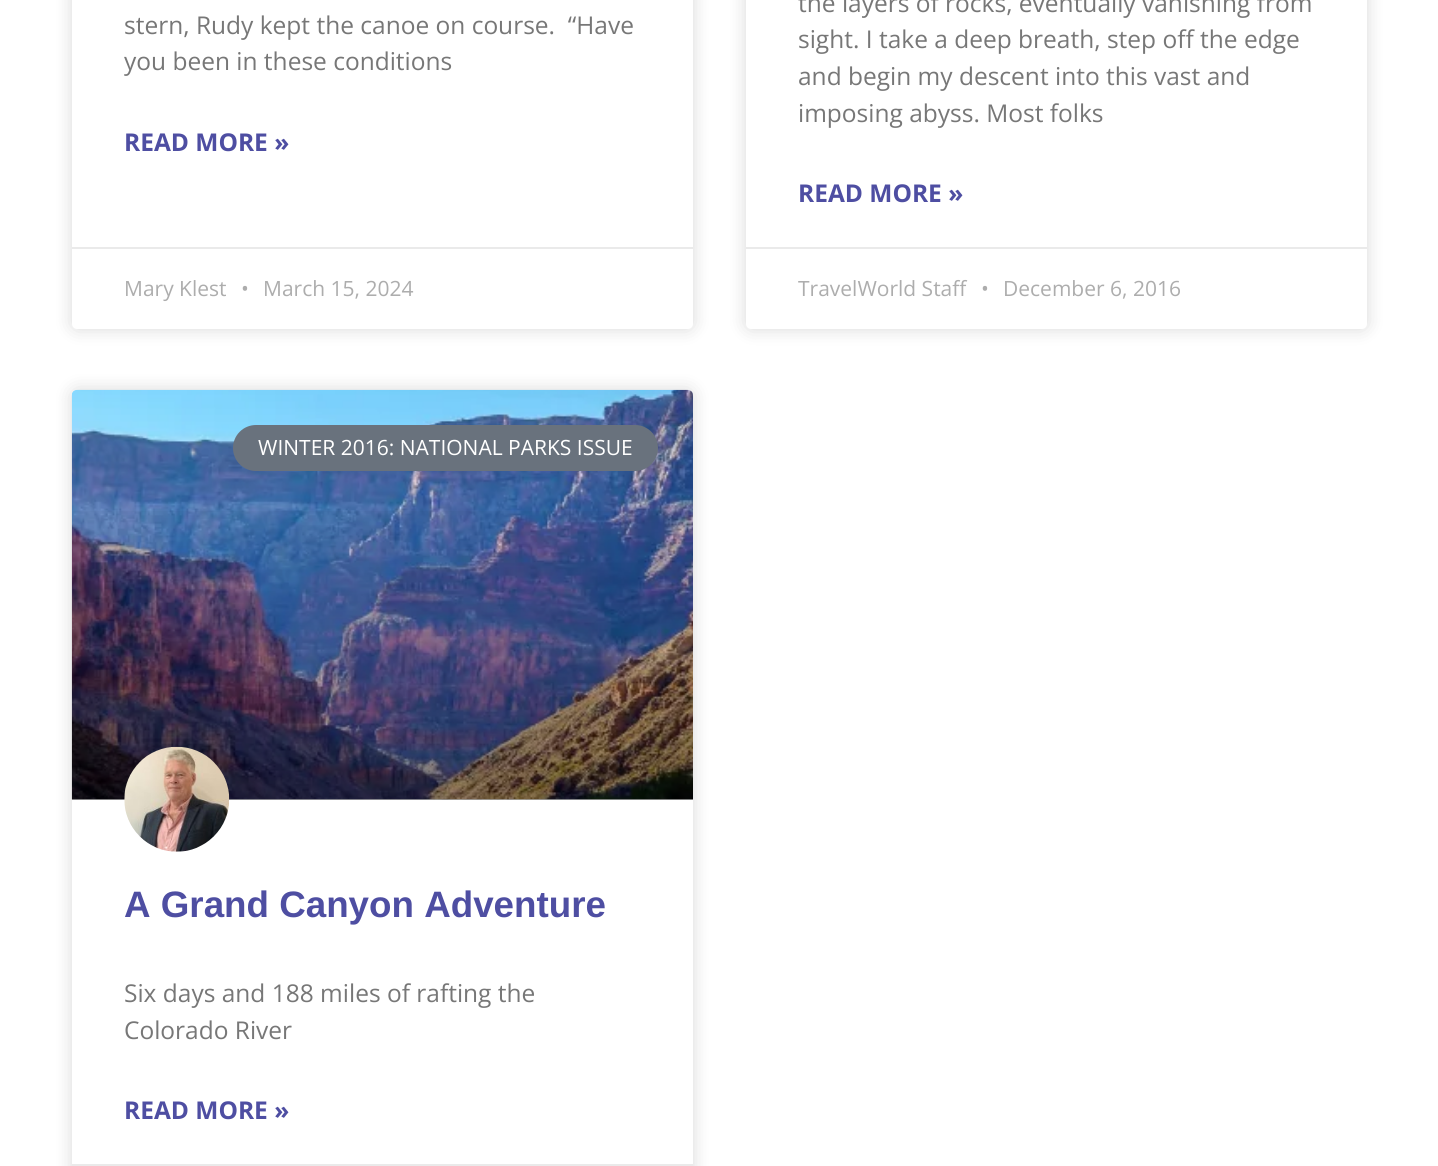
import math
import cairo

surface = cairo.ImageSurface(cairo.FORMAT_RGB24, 1438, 1166)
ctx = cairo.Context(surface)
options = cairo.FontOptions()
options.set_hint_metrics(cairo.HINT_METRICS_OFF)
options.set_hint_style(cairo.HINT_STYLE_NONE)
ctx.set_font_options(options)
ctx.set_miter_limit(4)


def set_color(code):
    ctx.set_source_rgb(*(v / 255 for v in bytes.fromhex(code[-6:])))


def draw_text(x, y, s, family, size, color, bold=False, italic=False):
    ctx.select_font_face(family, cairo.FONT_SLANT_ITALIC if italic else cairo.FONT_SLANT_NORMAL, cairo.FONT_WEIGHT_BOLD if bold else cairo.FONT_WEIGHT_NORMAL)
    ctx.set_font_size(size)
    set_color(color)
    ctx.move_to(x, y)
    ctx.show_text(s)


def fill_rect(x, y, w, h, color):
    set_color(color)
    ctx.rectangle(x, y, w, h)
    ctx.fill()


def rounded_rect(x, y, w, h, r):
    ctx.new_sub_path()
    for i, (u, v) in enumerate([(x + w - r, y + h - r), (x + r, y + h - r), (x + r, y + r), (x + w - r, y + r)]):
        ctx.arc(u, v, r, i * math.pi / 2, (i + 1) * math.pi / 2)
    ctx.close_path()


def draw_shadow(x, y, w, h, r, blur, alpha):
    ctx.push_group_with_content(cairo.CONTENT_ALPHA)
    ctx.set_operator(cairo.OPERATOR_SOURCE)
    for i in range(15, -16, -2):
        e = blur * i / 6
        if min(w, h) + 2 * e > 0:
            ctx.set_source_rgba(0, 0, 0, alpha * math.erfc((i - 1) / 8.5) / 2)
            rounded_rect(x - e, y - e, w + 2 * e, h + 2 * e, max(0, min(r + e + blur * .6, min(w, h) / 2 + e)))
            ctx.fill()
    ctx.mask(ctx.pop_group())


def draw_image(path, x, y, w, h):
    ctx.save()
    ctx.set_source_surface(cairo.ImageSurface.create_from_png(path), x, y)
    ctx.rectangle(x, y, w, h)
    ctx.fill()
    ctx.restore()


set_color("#ffffff")
ctx.paint()
set_color("#000000")
draw_shadow(72, -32, 621, 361, 5, 9, 0.15)
set_color("#ffffff")
rounded_rect(72, -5, 621, 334, 5)
ctx.fill()
draw_text(124, 34, "stern, Rudy kept the canoe on course.  “Have", "Open Sans", 24.5, "#777777")
draw_text(124, 70, "you been in these conditions", "Open Sans", 24.5, "#777777")
draw_text(124, 151, "READ MORE »", "Open Sans", 24.5, "#4e4ea2", bold=True)
fill_rect(72, 247, 621, 2, "#eaeaea")
draw_text(124, 296, "Mary Klest", "Open Sans", 21, "#adadad")
draw_text(241, 296, "•", "Open Sans", 21, "#adadad")
draw_text(263, 296, "March 15, 2024", "Open Sans", 21, "#adadad")
set_color("#000000")
draw_shadow(746, -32, 621, 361, 5, 9, 0.15)
set_color("#ffffff")
rounded_rect(746, -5, 621, 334, 5)
ctx.fill()
draw_text(798, 12, "the layers of rocks, eventually vanishing from", "Open Sans", 24.5, "#777777")
draw_text(798, 48, "sight. I take a deep breath, step off the edge", "Open Sans", 24.5, "#777777")
draw_text(798, 85, "and begin my descent into this vast and", "Open Sans", 24.5, "#777777")
draw_text(798, 122, "imposing abyss. Most folks", "Open Sans", 24.5, "#777777")
draw_text(798, 202, "READ MORE »", "Open Sans", 24.5, "#4e4ea2", bold=True)
fill_rect(746, 247, 621, 2, "#eaeaea")
draw_text(798, 296, "TravelWorld Staff", "Open Sans", 21, "#adadad")
draw_text(981, 296, "•", "Open Sans", 21, "#adadad")
draw_text(1003, 296, "December 6, 2016", "Open Sans", 21, "#adadad")
set_color("#000000")
draw_shadow(72, 390, 621, 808, 5, 9, 0.15)
set_color("#ffffff")
rounded_rect(72, 390, 621, 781, 5)
ctx.fill()
draw_image("assets/img1.png", 71, 389, 622, 411)
gradient = cairo.LinearGradient(382, 800, 382, 390)
gradient.add_color_stop_rgba(0, 0, 0, 0, 0.35)
gradient.add_color_stop_rgba(0.75, 0, 0, 0, 0)
ctx.set_source(gradient)
ctx.rectangle(72, 511, 621, 289)
ctx.fill()
set_color("#69727d")
rounded_rect(233, 425, 425, 46, 23)
ctx.fill()
draw_text(258, 455, "WINTER 2016: NATIONAL PARKS ISSUE", "Open Sans", 21, "#ffffff")
draw_image("assets/img2.png", 124, 746, 106, 106)
draw_text(124, 917, "A Grand Canyon Adventure", "Liberation Sans", 36.75, "#4e4ea2", bold=True)
draw_text(124, 1002, "Six days and 188 miles of rafting the", "Open Sans", 24.5, "#777777")
draw_text(124, 1039, "Colorado River", "Open Sans", 24.5, "#777777")
draw_text(124, 1119, "READ MORE »", "Open Sans", 24.5, "#4e4ea2", bold=True)
fill_rect(72, 1164, 621, 2, "#eaeaea")
surface.write_to_png("output.png")
